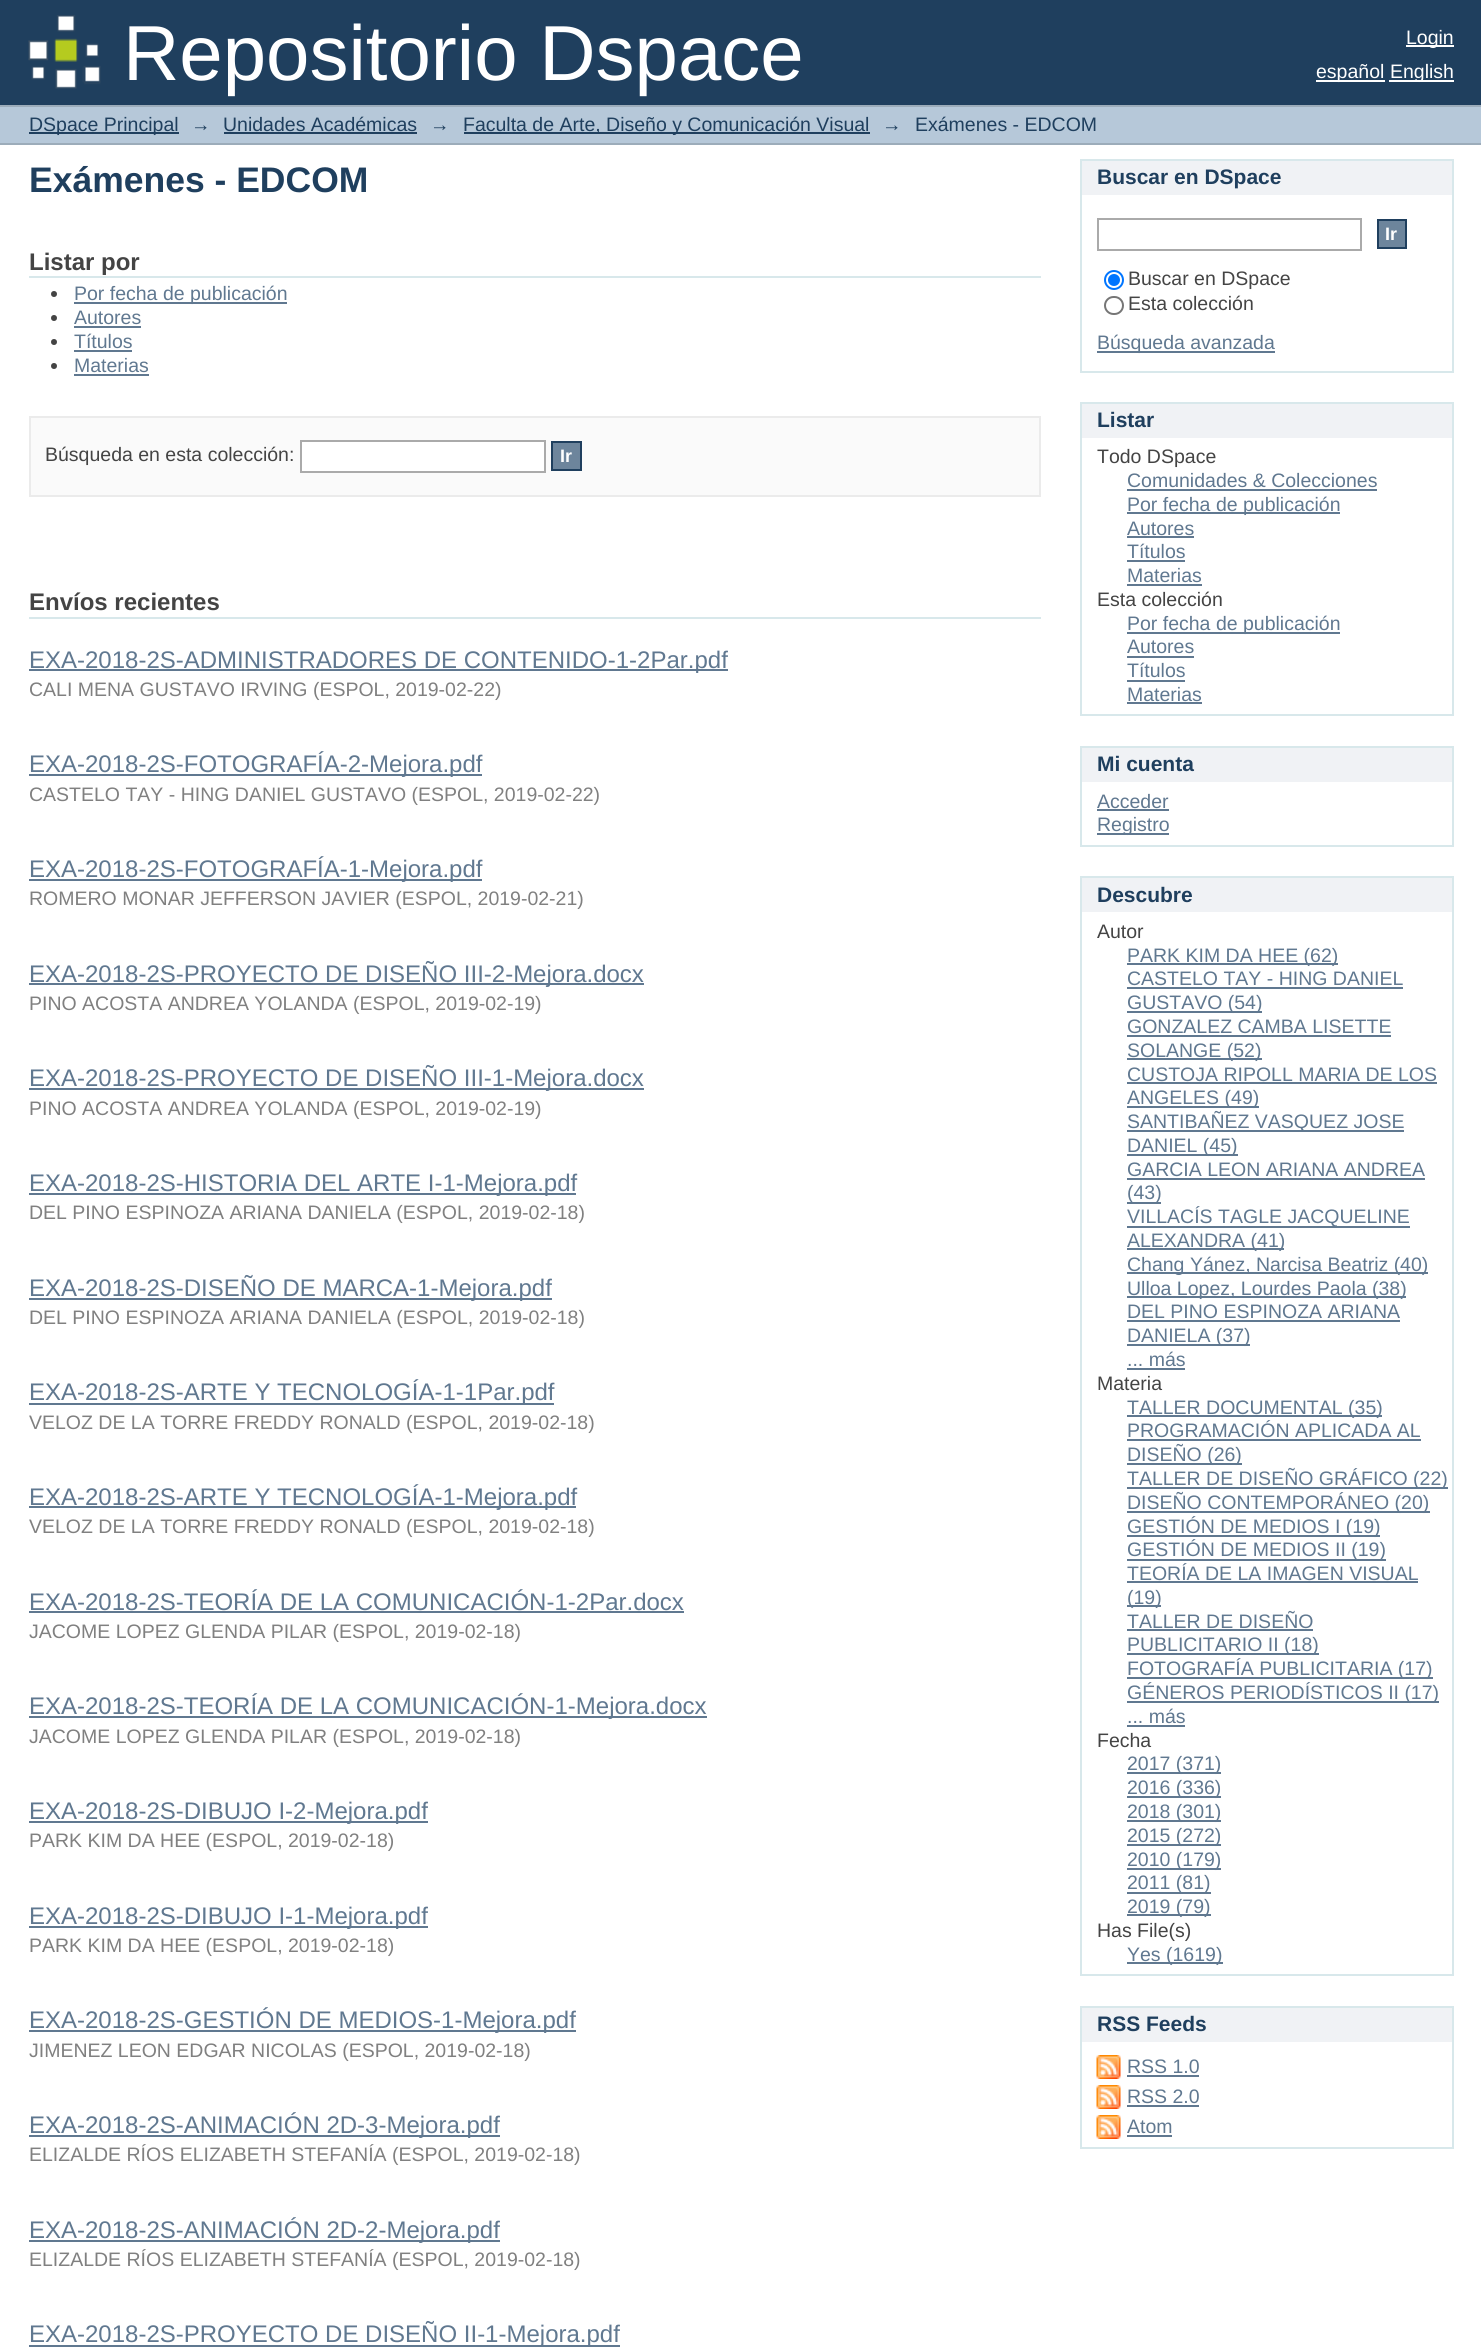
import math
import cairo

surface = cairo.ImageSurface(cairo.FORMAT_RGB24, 1481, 2351)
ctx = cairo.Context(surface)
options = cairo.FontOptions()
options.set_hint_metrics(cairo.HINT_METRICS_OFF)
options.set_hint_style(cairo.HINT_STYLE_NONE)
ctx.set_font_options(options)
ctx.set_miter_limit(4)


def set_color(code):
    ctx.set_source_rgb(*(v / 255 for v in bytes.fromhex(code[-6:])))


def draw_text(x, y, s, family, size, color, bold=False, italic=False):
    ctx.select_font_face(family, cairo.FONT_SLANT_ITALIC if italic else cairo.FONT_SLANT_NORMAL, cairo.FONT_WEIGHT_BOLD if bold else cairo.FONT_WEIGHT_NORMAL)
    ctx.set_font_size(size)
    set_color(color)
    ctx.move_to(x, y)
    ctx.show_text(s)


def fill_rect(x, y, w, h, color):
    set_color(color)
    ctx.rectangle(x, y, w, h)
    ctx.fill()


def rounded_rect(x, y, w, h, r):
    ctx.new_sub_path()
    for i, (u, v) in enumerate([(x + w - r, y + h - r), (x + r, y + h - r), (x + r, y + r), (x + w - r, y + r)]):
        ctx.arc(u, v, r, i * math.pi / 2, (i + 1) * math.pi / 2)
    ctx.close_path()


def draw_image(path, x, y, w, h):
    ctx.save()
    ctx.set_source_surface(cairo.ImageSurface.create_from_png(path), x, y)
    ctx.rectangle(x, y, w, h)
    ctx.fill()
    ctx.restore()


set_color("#ffffff")
ctx.paint()
fill_rect(0, 0, 1481, 105, "#1f3f5e")
draw_image("assets/img1.png", 28, 15, 73, 74)
draw_text(123, 80, "Repositorio Dspace", "Liberation Sans", 78, "#ffffff")
fill_rect(1406, 45, 48, 2, "#ffffff")
draw_text(1406, 44, "Login", "Liberation Sans", 19.5, "#ffffff")
fill_rect(1316, 80, 69, 2, "#ffffff")
draw_text(1316, 78, "español", "Liberation Sans", 19.5, "#ffffff")
fill_rect(1389, 80, 65, 2, "#ffffff")
draw_text(1390, 78, "English", "Liberation Sans", 19.5, "#ffffff")
fill_rect(0, 107, 1481, 36, "#b6c8d9")
fill_rect(0, 105, 1481, 2, "#9cacba")
fill_rect(0, 143, 1481, 2, "#9cacba")
fill_rect(29, 132, 150, 2, "#1f3f5e")
draw_text(29, 131, "DSpace Principal", "Liberation Sans", 19.5, "#1f3f5e")
draw_text(191, 131, "→", "Liberation Sans", 19.5, "#1f3f5e")
draw_text(223, 131, "Unidades Académicas", "Liberation Sans", 19.5, "#1f3f5e")
fill_rect(224, 132, 193, 2, "#1f3f5e")
draw_text(430, 131, "→", "Liberation Sans", 19.5, "#1f3f5e")
fill_rect(464, 132, 406, 2, "#1f3f5e")
draw_text(463, 131, "Faculta de Arte, Diseño y Comunicación Visual", "Liberation Sans", 19.5, "#1f3f5e")
draw_text(882, 131, "→", "Liberation Sans", 19.5, "#1f3f5e")
draw_text(915, 131, "Exámenes - EDCOM", "Liberation Sans", 19.5, "#1f3f5e")
draw_text(29, 192, "Exámenes - EDCOM", "Liberation Sans", 35.5, "#1f3f5e", bold=True)
fill_rect(29, 276, 1012, 2, "#d8e8eb")
draw_text(29, 270, "Listar por", "Liberation Sans", 24, "#444444", bold=True)
ctx.new_path()
ctx.arc(54, 294, 3, 0, 2 * math.pi)
ctx.fill()
fill_rect(74, 302, 213, 2, "#607890")
draw_text(74, 300, "Por fecha de publicación", "Liberation Sans", 19.5, "#607890")
set_color("#444444")
ctx.new_path()
ctx.arc(54, 318, 3, 0, 2 * math.pi)
ctx.fill()
draw_text(74, 324, "Autores", "Liberation Sans", 19.5, "#607890")
fill_rect(74, 326, 67, 2, "#607890")
set_color("#444444")
ctx.new_path()
ctx.arc(54, 342, 3, 0, 2 * math.pi)
ctx.fill()
draw_text(74, 348, "Títulos", "Liberation Sans", 19.5, "#607890")
fill_rect(74, 350, 58, 2, "#607890")
set_color("#444444")
ctx.new_path()
ctx.arc(54, 366, 3, 0, 2 * math.pi)
ctx.fill()
draw_text(74, 372, "Materias", "Liberation Sans", 19.5, "#607890")
fill_rect(74, 374, 75, 2, "#607890")
set_color("#fafafa")
ctx.rectangle(30, 417, 1010, 79)
ctx.fill_preserve()
set_color("#ebebeb")
ctx.stroke()
draw_text(45, 461, "Búsqueda en esta colección:", "Liberation Sans", 19.5, "#444444")
set_color("#ffffff")
ctx.rectangle(301, 441, 244, 31)
ctx.fill_preserve()
set_color("#aaaaaa")
ctx.stroke()
set_color("#6d859c")
ctx.rectangle(552, 442, 29, 28)
ctx.fill_preserve()
set_color("#1f3f5e")
ctx.stroke()
draw_text(560, 462, "Ir", "Liberation Sans", 18, "#ffffff", bold=True)
fill_rect(29, 617, 1012, 2, "#d8e8eb")
draw_text(29, 610, "Envíos recientes", "Liberation Sans", 24, "#444444", bold=True)
fill_rect(29, 669, 699, 2, "#607890")
draw_text(29, 668, "EXA-2018-2S-ADMINISTRADORES DE CONTENIDO-1-2Par.pdf", "Liberation Sans", 24, "#607890")
draw_text(29, 696, "CALI MENA GUSTAVO IRVING (ESPOL, 2019-02-22)", "Liberation Sans", 19.5, "#808080")
fill_rect(29, 774, 453, 2, "#607890")
draw_text(29, 772, "EXA-2018-2S-FOTOGRAFÍA-2-Mejora.pdf", "Liberation Sans", 24, "#607890")
draw_text(29, 801, "CASTELO TAY - HING DANIEL GUSTAVO (ESPOL, 2019-02-22)", "Liberation Sans", 19.5, "#808080")
fill_rect(29, 879, 453, 2, "#607890")
draw_text(29, 877, "EXA-2018-2S-FOTOGRAFÍA-1-Mejora.pdf", "Liberation Sans", 24, "#607890")
draw_text(29, 905, "ROMERO MONAR JEFFERSON JAVIER (ESPOL, 2019-02-21)", "Liberation Sans", 19.5, "#808080")
fill_rect(29, 983, 615, 2, "#607890")
draw_text(29, 982, "EXA-2018-2S-PROYECTO DE DISEÑO III-2-Mejora.docx", "Liberation Sans", 24, "#607890")
draw_text(29, 1010, "PINO ACOSTA ANDREA YOLANDA (ESPOL, 2019-02-19)", "Liberation Sans", 19.5, "#808080")
fill_rect(29, 1088, 615, 2, "#607890")
draw_text(29, 1086, "EXA-2018-2S-PROYECTO DE DISEÑO III-1-Mejora.docx", "Liberation Sans", 24, "#607890")
draw_text(29, 1115, "PINO ACOSTA ANDREA YOLANDA (ESPOL, 2019-02-19)", "Liberation Sans", 19.5, "#808080")
fill_rect(29, 1193, 547, 2, "#607890")
draw_text(29, 1191, "EXA-2018-2S-HISTORIA DEL ARTE I-1-Mejora.pdf", "Liberation Sans", 24, "#607890")
draw_text(29, 1219, "DEL PINO ESPINOZA ARIANA DANIELA (ESPOL, 2019-02-18)", "Liberation Sans", 19.5, "#808080")
fill_rect(29, 1298, 523, 2, "#607890")
draw_text(29, 1296, "EXA-2018-2S-DISEÑO DE MARCA-1-Mejora.pdf", "Liberation Sans", 24, "#607890")
draw_text(29, 1324, "DEL PINO ESPINOZA ARIANA DANIELA (ESPOL, 2019-02-18)", "Liberation Sans", 19.5, "#808080")
fill_rect(29, 1403, 525, 2, "#607890")
draw_text(29, 1400, "EXA-2018-2S-ARTE Y TECNOLOGÍA-1-1Par.pdf", "Liberation Sans", 24, "#607890")
draw_text(29, 1429, "VELOZ DE LA TORRE FREDDY RONALD (ESPOL, 2019-02-18)", "Liberation Sans", 19.5, "#808080")
fill_rect(29, 1506, 547, 2, "#607890")
draw_text(29, 1505, "EXA-2018-2S-ARTE Y TECNOLOGÍA-1-Mejora.pdf", "Liberation Sans", 24, "#607890")
draw_text(29, 1533, "VELOZ DE LA TORRE FREDDY RONALD (ESPOL, 2019-02-18)", "Liberation Sans", 19.5, "#808080")
draw_text(29, 1610, "EXA-2018-2S-TEORÍA DE LA COMUNICACIÓN-1-2Par.docx", "Liberation Sans", 24, "#607890")
fill_rect(29, 1611, 655, 2, "#607890")
draw_text(29, 1638, "JACOME LOPEZ GLENDA PILAR (ESPOL, 2019-02-18)", "Liberation Sans", 19.5, "#808080")
fill_rect(29, 1716, 678, 2, "#607890")
draw_text(29, 1714, "EXA-2018-2S-TEORÍA DE LA COMUNICACIÓN-1-Mejora.docx", "Liberation Sans", 24, "#607890")
draw_text(29, 1743, "JACOME LOPEZ GLENDA PILAR (ESPOL, 2019-02-18)", "Liberation Sans", 19.5, "#808080")
fill_rect(29, 1821, 399, 2, "#607890")
draw_text(29, 1819, "EXA-2018-2S-DIBUJO I-2-Mejora.pdf", "Liberation Sans", 24, "#607890")
draw_text(29, 1847, "PARK KIM DA HEE (ESPOL, 2019-02-18)", "Liberation Sans", 19.5, "#808080")
fill_rect(29, 1926, 399, 2, "#607890")
draw_text(29, 1924, "EXA-2018-2S-DIBUJO I-1-Mejora.pdf", "Liberation Sans", 24, "#607890")
draw_text(29, 1952, "PARK KIM DA HEE (ESPOL, 2019-02-18)", "Liberation Sans", 19.5, "#808080")
fill_rect(29, 2030, 547, 2, "#607890")
draw_text(29, 2028, "EXA-2018-2S-GESTIÓN DE MEDIOS-1-Mejora.pdf", "Liberation Sans", 24, "#607890")
draw_text(29, 2057, "JIMENEZ LEON EDGAR NICOLAS (ESPOL, 2019-02-18)", "Liberation Sans", 19.5, "#808080")
fill_rect(29, 2135, 471, 2, "#607890")
draw_text(29, 2133, "EXA-2018-2S-ANIMACIÓN 2D-3-Mejora.pdf", "Liberation Sans", 24, "#607890")
draw_text(29, 2161, "ELIZALDE RÍOS ELIZABETH STEFANÍA (ESPOL, 2019-02-18)", "Liberation Sans", 19.5, "#808080")
fill_rect(29, 2240, 471, 2, "#607890")
draw_text(29, 2238, "EXA-2018-2S-ANIMACIÓN 2D-2-Mejora.pdf", "Liberation Sans", 24, "#607890")
draw_text(29, 2266, "ELIZALDE RÍOS ELIZABETH STEFANÍA (ESPOL, 2019-02-18)", "Liberation Sans", 19.5, "#808080")
fill_rect(29, 2345, 591, 2, "#607890")
draw_text(29, 2342, "EXA-2018-2S-PROYECTO DE DISEÑO II-1-Mejora.pdf", "Liberation Sans", 24, "#607890")
fill_rect(1082, 161, 370, 34, "#f0f2f5")
fill_rect(1080, 159, 374, 2, "#d8e8eb")
fill_rect(1452, 159, 2, 213, "#d8e8eb")
fill_rect(1080, 159, 2, 36, "#d8e8eb")
draw_text(1097, 184, "Buscar en DSpace", "Liberation Sans", 21, "#1f3f5e", bold=True)
fill_rect(1080, 371, 374, 2, "#d8e8eb")
fill_rect(1080, 195, 2, 177, "#d8e8eb")
ctx.rectangle(1098, 219, 263, 31)
set_color("#aaaaaa")
ctx.stroke()
set_color("#6d859c")
ctx.rectangle(1378, 220, 28, 28)
ctx.fill_preserve()
set_color("#1f3f5e")
ctx.stroke()
draw_text(1385, 240, "Ir", "Liberation Sans", 18, "#ffffff", bold=True)
ctx.new_path()
ctx.arc(1114, 280, 9, 0, 2 * math.pi)
set_color("#0075ff")
ctx.stroke()
ctx.arc(1114, 280, 6, 0, 2 * math.pi)
ctx.fill()
draw_text(1128, 285, "Buscar en DSpace", "Liberation Sans", 19.5, "#444444")
rounded_rect(1105, 297, 18, 17, 8.5)
set_color("#767676")
ctx.stroke()
draw_text(1128, 310, "Esta colección", "Liberation Sans", 19.5, "#444444")
fill_rect(1097, 351, 178, 2, "#607890")
draw_text(1097, 349, "Búsqueda avanzada", "Liberation Sans", 19.5, "#607890")
fill_rect(1082, 404, 370, 34, "#f0f2f5")
fill_rect(1080, 402, 374, 2, "#d8e8eb")
fill_rect(1452, 402, 2, 314, "#d8e8eb")
fill_rect(1080, 402, 2, 36, "#d8e8eb")
draw_text(1097, 427, "Listar", "Liberation Sans", 21, "#1f3f5e", bold=True)
fill_rect(1080, 714, 374, 2, "#d8e8eb")
fill_rect(1080, 438, 2, 278, "#d8e8eb")
draw_text(1097, 463, "Todo DSpace", "Liberation Sans", 19.5, "#444444")
draw_text(1127, 487, "Comunidades & Colecciones", "Liberation Sans", 19.5, "#607890")
fill_rect(1127, 489, 250, 2, "#607890")
fill_rect(1127, 512, 213, 2, "#607890")
draw_text(1127, 511, "Por fecha de publicación", "Liberation Sans", 19.5, "#607890")
draw_text(1127, 535, "Autores", "Liberation Sans", 19.5, "#607890")
fill_rect(1127, 536, 67, 2, "#607890")
draw_text(1127, 558, "Títulos", "Liberation Sans", 19.5, "#607890")
fill_rect(1127, 560, 58, 2, "#607890")
draw_text(1127, 582, "Materias", "Liberation Sans", 19.5, "#607890")
fill_rect(1127, 584, 75, 2, "#607890")
draw_text(1097, 606, "Esta colección", "Liberation Sans", 19.5, "#444444")
fill_rect(1127, 632, 213, 2, "#607890")
draw_text(1127, 630, "Por fecha de publicación", "Liberation Sans", 19.5, "#607890")
draw_text(1127, 653, "Autores", "Liberation Sans", 19.5, "#607890")
fill_rect(1127, 656, 67, 2, "#607890")
draw_text(1127, 677, "Títulos", "Liberation Sans", 19.5, "#607890")
fill_rect(1127, 680, 58, 2, "#607890")
draw_text(1127, 701, "Materias", "Liberation Sans", 19.5, "#607890")
fill_rect(1127, 702, 75, 2, "#607890")
fill_rect(1082, 748, 370, 34, "#f0f2f5")
fill_rect(1080, 746, 374, 2, "#d8e8eb")
fill_rect(1452, 746, 2, 100, "#d8e8eb")
fill_rect(1080, 746, 2, 36, "#d8e8eb")
draw_text(1097, 771, "Mi cuenta", "Liberation Sans", 21, "#1f3f5e", bold=True)
fill_rect(1080, 845, 374, 2, "#d8e8eb")
fill_rect(1080, 782, 2, 64, "#d8e8eb")
draw_text(1097, 808, "Acceder", "Liberation Sans", 19.5, "#607890")
fill_rect(1097, 809, 72, 2, "#607890")
fill_rect(1097, 833, 72, 2, "#607890")
draw_text(1097, 831, "Registro", "Liberation Sans", 19.5, "#607890")
fill_rect(1082, 878, 370, 34, "#f0f2f5")
fill_rect(1080, 876, 374, 2, "#d8e8eb")
fill_rect(1452, 876, 2, 1100, "#d8e8eb")
fill_rect(1080, 876, 2, 36, "#d8e8eb")
draw_text(1097, 902, "Descubre", "Liberation Sans", 21, "#1f3f5e", bold=True)
fill_rect(1080, 1974, 374, 2, "#d8e8eb")
fill_rect(1080, 912, 2, 1064, "#d8e8eb")
draw_text(1097, 938, "Autor", "Liberation Sans", 19.5, "#444444")
fill_rect(1127, 963, 211, 2, "#607890")
draw_text(1127, 962, "PARK KIM DA HEE (62)", "Liberation Sans", 19.5, "#607890")
draw_text(1127, 985, "CASTELO TAY - HING DANIEL", "Liberation Sans", 19.5, "#607890")
fill_rect(1127, 987, 276, 2, "#607890")
fill_rect(1127, 1011, 135, 2, "#607890")
draw_text(1127, 1009, "GUSTAVO (54)", "Liberation Sans", 19.5, "#607890")
draw_text(1127, 1033, "GONZALEZ CAMBA LISETTE", "Liberation Sans", 19.5, "#607890")
fill_rect(1127, 1035, 264, 2, "#607890")
fill_rect(1127, 1058, 135, 2, "#607890")
draw_text(1127, 1057, "SOLANGE (52)", "Liberation Sans", 19.5, "#607890")
draw_text(1127, 1081, "CUSTOJA RIPOLL MARIA DE LOS", "Liberation Sans", 19.5, "#607890")
fill_rect(1127, 1082, 310, 2, "#607890")
fill_rect(1127, 1106, 132, 2, "#607890")
draw_text(1127, 1104, "ANGELES (49)", "Liberation Sans", 19.5, "#607890")
fill_rect(1127, 1130, 277, 2, "#607890")
draw_text(1127, 1128, "SANTIBAÑEZ VASQUEZ JOSE", "Liberation Sans", 19.5, "#607890")
fill_rect(1127, 1154, 111, 2, "#607890")
draw_text(1127, 1152, "DANIEL (45)", "Liberation Sans", 19.5, "#607890")
draw_text(1127, 1176, "GARCIA LEON ARIANA ANDREA", "Liberation Sans", 19.5, "#607890")
fill_rect(1127, 1178, 298, 2, "#607890")
fill_rect(1127, 1202, 34, 2, "#607890")
draw_text(1127, 1199, "(43)", "Liberation Sans", 19.5, "#607890")
fill_rect(1127, 1226, 283, 2, "#607890")
draw_text(1127, 1223, "VILLACÍS TAGLE JACQUELINE", "Liberation Sans", 19.5, "#607890")
fill_rect(1127, 1248, 157, 2, "#607890")
draw_text(1127, 1247, "ALEXANDRA (41)", "Liberation Sans", 19.5, "#607890")
fill_rect(1127, 1272, 301, 2, "#607890")
draw_text(1127, 1271, "Chang Yánez, Narcisa Beatriz (40)", "Liberation Sans", 19.5, "#607890")
fill_rect(1127, 1296, 279, 2, "#607890")
draw_text(1127, 1295, "Ulloa Lopez, Lourdes Paola (38)", "Liberation Sans", 19.5, "#607890")
draw_text(1127, 1318, "DEL PINO ESPINOZA ARIANA", "Liberation Sans", 19.5, "#607890")
fill_rect(1127, 1320, 273, 2, "#607890")
fill_rect(1127, 1344, 123, 2, "#607890")
draw_text(1127, 1342, "DANIELA (37)", "Liberation Sans", 19.5, "#607890")
draw_text(1127, 1366, "... más", "Liberation Sans", 19.5, "#607890")
fill_rect(1127, 1368, 58, 2, "#607890")
draw_text(1097, 1390, "Materia", "Liberation Sans", 19.5, "#444444")
fill_rect(1127, 1415, 255, 2, "#607890")
draw_text(1127, 1414, "TALLER DOCUMENTAL (35)", "Liberation Sans", 19.5, "#607890")
draw_text(1127, 1437, "PROGRAMACIÓN APLICADA AL", "Liberation Sans", 19.5, "#607890")
fill_rect(1127, 1439, 294, 2, "#607890")
fill_rect(1127, 1463, 115, 2, "#607890")
draw_text(1127, 1461, "DISEÑO (26)", "Liberation Sans", 19.5, "#607890")
fill_rect(1127, 1487, 321, 2, "#607890")
draw_text(1127, 1485, "TALLER DE DISEÑO GRÁFICO (22)", "Liberation Sans", 19.5, "#607890")
fill_rect(1127, 1511, 303, 2, "#607890")
draw_text(1127, 1509, "DISEÑO CONTEMPORÁNEO (20)", "Liberation Sans", 19.5, "#607890")
fill_rect(1127, 1535, 253, 2, "#607890")
draw_text(1127, 1533, "GESTIÓN DE MEDIOS I (19)", "Liberation Sans", 19.5, "#607890")
fill_rect(1127, 1559, 259, 2, "#607890")
draw_text(1127, 1556, "GESTIÓN DE MEDIOS II (19)", "Liberation Sans", 19.5, "#607890")
draw_text(1127, 1580, "TEORÍA DE LA IMAGEN VISUAL", "Liberation Sans", 19.5, "#607890")
fill_rect(1127, 1581, 291, 2, "#607890")
fill_rect(1127, 1605, 34, 2, "#607890")
draw_text(1127, 1604, "(19)", "Liberation Sans", 19.5, "#607890")
draw_text(1127, 1628, "TALLER DE DISEÑO", "Liberation Sans", 19.5, "#607890")
fill_rect(1127, 1629, 186, 2, "#607890")
fill_rect(1127, 1653, 192, 2, "#607890")
draw_text(1127, 1651, "PUBLICITARIO II (18)", "Liberation Sans", 19.5, "#607890")
fill_rect(1127, 1677, 306, 2, "#607890")
draw_text(1127, 1675, "FOTOGRAFÍA PUBLICITARIA (17)", "Liberation Sans", 19.5, "#607890")
fill_rect(1127, 1701, 312, 2, "#607890")
draw_text(1127, 1699, "GÉNEROS PERIODÍSTICOS II (17)", "Liberation Sans", 19.5, "#607890")
draw_text(1127, 1723, "... más", "Liberation Sans", 19.5, "#607890")
fill_rect(1127, 1725, 58, 2, "#607890")
draw_text(1097, 1747, "Fecha", "Liberation Sans", 19.5, "#444444")
fill_rect(1127, 1772, 94, 2, "#607890")
draw_text(1127, 1770, "2017 (371)", "Liberation Sans", 19.5, "#607890")
fill_rect(1127, 1796, 94, 2, "#607890")
draw_text(1127, 1794, "2016 (336)", "Liberation Sans", 19.5, "#607890")
fill_rect(1127, 1820, 94, 2, "#607890")
draw_text(1127, 1818, "2018 (301)", "Liberation Sans", 19.5, "#607890")
fill_rect(1127, 1844, 94, 2, "#607890")
draw_text(1127, 1842, "2015 (272)", "Liberation Sans", 19.5, "#607890")
fill_rect(1127, 1868, 94, 2, "#607890")
draw_text(1127, 1866, "2010 (179)", "Liberation Sans", 19.5, "#607890")
fill_rect(1127, 1892, 84, 2, "#607890")
draw_text(1127, 1889, "2011 (81)", "Liberation Sans", 19.5, "#607890")
fill_rect(1127, 1914, 84, 2, "#607890")
draw_text(1127, 1913, "2019 (79)", "Liberation Sans", 19.5, "#607890")
draw_text(1097, 1937, "Has File(s)", "Liberation Sans", 19.5, "#444444")
fill_rect(1127, 1962, 96, 2, "#607890")
draw_text(1127, 1961, "Yes (1619)", "Liberation Sans", 19.5, "#607890")
fill_rect(1082, 2008, 370, 34, "#f0f2f5")
fill_rect(1080, 2006, 374, 2, "#d8e8eb")
fill_rect(1452, 2006, 2, 142, "#d8e8eb")
fill_rect(1080, 2006, 2, 36, "#d8e8eb")
draw_text(1097, 2031, "RSS Feeds", "Liberation Sans", 21, "#1f3f5e", bold=True)
fill_rect(1080, 2147, 374, 2, "#d8e8eb")
fill_rect(1080, 2042, 2, 106, "#d8e8eb")
draw_image("assets/img2.png", 1096, 2055, 25, 24)
draw_text(1127, 2073, "RSS 1.0", "Liberation Sans", 19.5, "#607890")
fill_rect(1127, 2075, 72, 2, "#607890")
draw_image("assets/img2.png", 1096, 2085, 25, 24)
draw_text(1127, 2103, "RSS 2.0", "Liberation Sans", 19.5, "#607890")
fill_rect(1127, 2105, 72, 2, "#607890")
draw_image("assets/img2.png", 1096, 2115, 25, 24)
draw_text(1127, 2133, "Atom", "Liberation Sans", 19.5, "#607890")
fill_rect(1127, 2135, 45, 2, "#607890")
surface.write_to_png("output.png")
